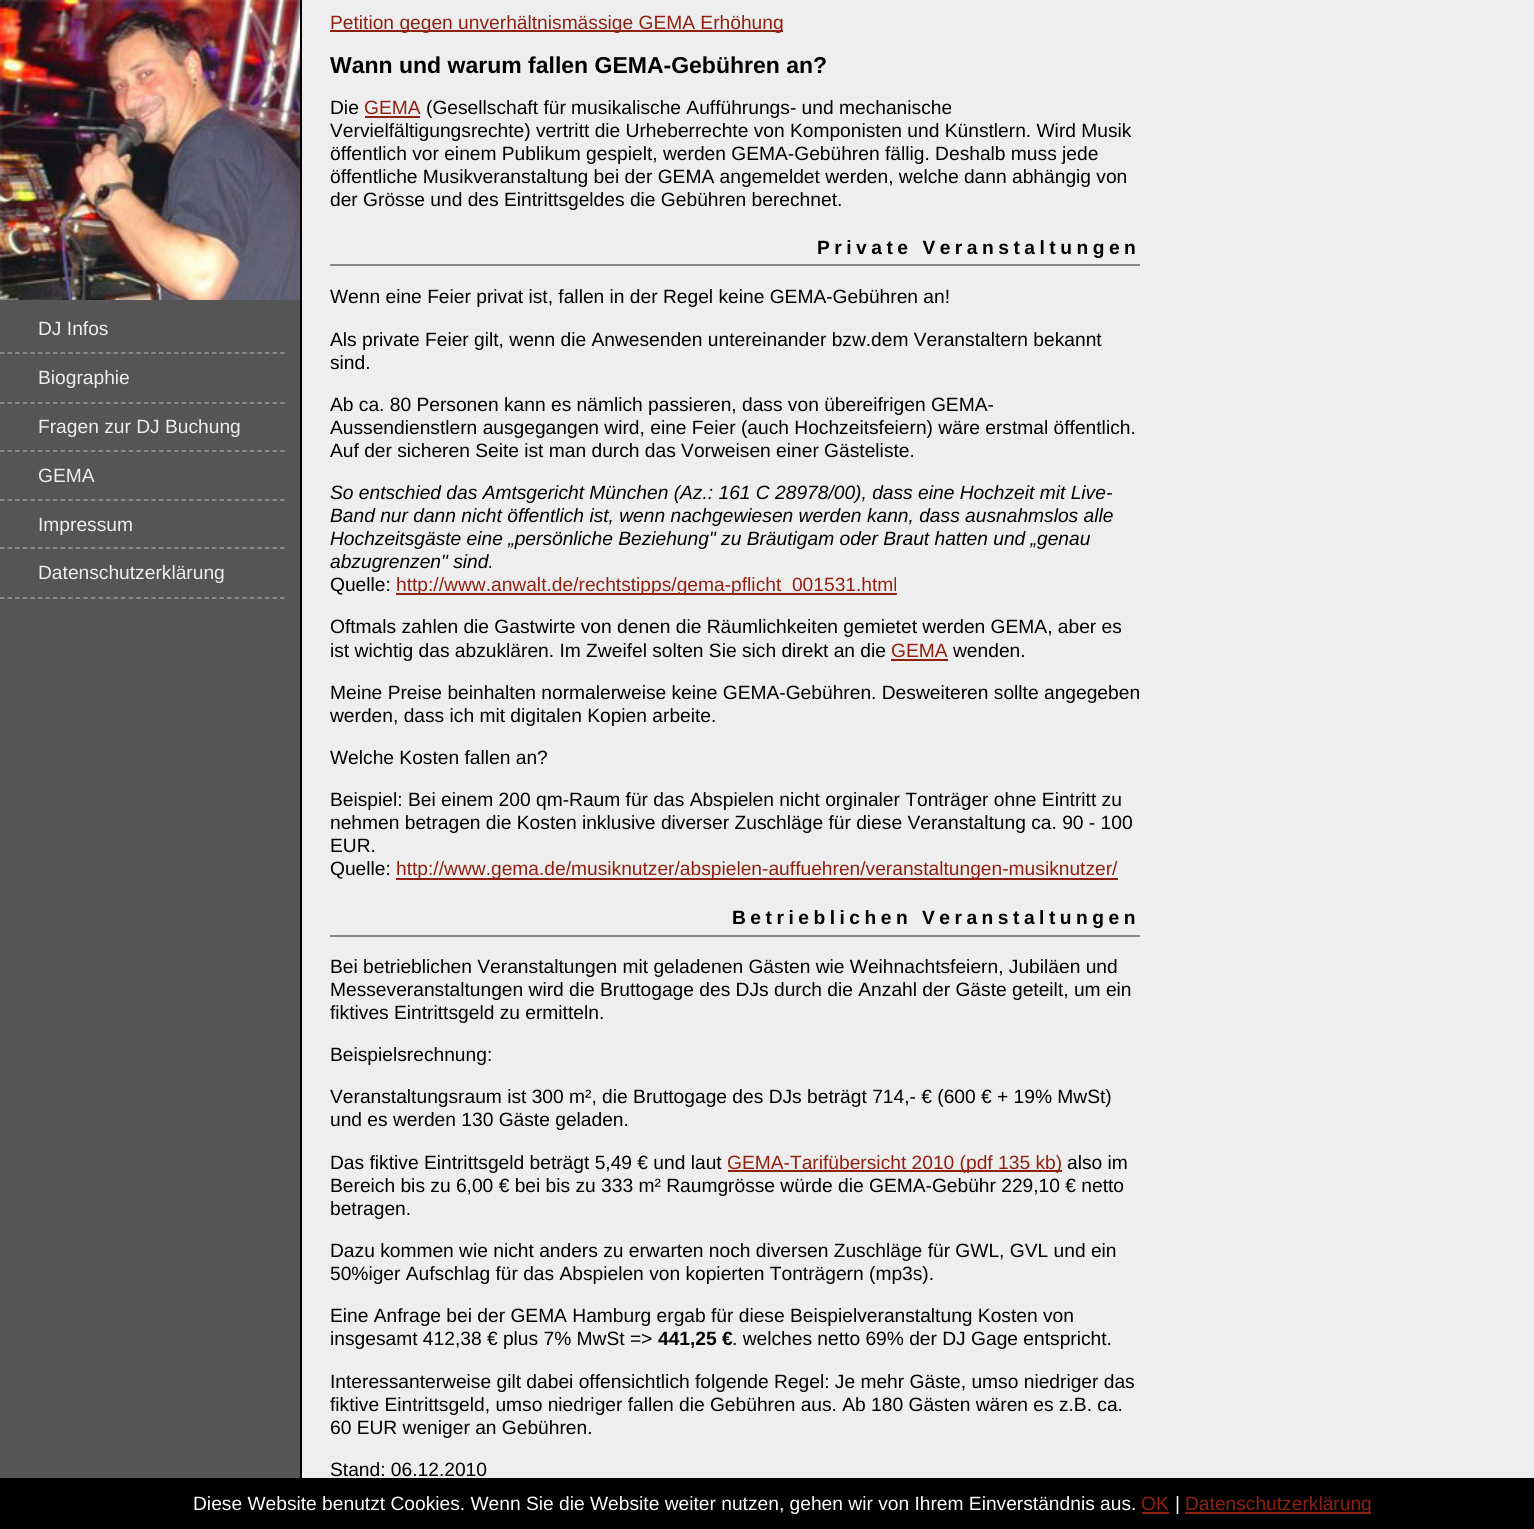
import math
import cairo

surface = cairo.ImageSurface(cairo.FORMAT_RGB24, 1534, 1529)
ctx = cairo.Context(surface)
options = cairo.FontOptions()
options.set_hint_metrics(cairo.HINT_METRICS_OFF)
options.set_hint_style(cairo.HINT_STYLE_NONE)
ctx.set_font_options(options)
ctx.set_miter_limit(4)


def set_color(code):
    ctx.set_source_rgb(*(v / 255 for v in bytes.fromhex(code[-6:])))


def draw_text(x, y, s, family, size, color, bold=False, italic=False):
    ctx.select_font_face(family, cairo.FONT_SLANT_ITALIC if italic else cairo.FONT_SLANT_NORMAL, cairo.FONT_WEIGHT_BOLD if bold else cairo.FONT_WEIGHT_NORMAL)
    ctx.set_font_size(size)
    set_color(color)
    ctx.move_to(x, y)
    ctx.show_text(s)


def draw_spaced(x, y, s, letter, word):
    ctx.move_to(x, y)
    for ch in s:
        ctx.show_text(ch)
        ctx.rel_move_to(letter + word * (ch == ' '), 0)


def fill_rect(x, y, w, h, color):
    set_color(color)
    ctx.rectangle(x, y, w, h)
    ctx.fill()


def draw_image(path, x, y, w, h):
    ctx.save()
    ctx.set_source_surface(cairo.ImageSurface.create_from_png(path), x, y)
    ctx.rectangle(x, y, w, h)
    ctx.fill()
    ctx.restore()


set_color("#eeeeee")
ctx.paint()
fill_rect(0, 300, 300, 1178, "#555555")
fill_rect(300, 0, 2, 1478, "#000000")
draw_image("assets/img1.png", 0, 0, 300, 300)
ctx.new_path()
ctx.move_to(0, 353)
ctx.line_to(285, 353)
set_color("#999999")
ctx.set_line_width(1.5)
ctx.set_dash([4.5, 3.07])
ctx.stroke()
draw_text(38, 335, "DJ Infos", "Liberation Sans", 19.2, "#eeeeee")
ctx.new_path()
ctx.move_to(0, 403)
ctx.line_to(285, 403)
set_color("#999999")
ctx.stroke()
draw_text(38, 384, "Biographie", "Liberation Sans", 19.2, "#eeeeee")
ctx.new_path()
ctx.move_to(0, 451)
ctx.line_to(285, 451)
set_color("#999999")
ctx.stroke()
draw_text(38, 433, "Fragen zur DJ Buchung", "Liberation Sans", 19.2, "#eeeeee")
ctx.new_path()
ctx.move_to(0, 500)
ctx.line_to(285, 500)
set_color("#999999")
ctx.stroke()
draw_text(38, 482, "GEMA", "Liberation Sans", 19.2, "#eeeeee")
ctx.new_path()
ctx.move_to(0, 548)
ctx.line_to(285, 548)
set_color("#999999")
ctx.stroke()
draw_text(38, 531, "Impressum", "Liberation Sans", 19.2, "#eeeeee")
ctx.new_path()
ctx.move_to(0, 598)
ctx.line_to(285, 598)
set_color("#999999")
ctx.stroke()
draw_text(38, 579, "Datenschutzerklärung", "Liberation Sans", 19.2, "#eeeeee")
fill_rect(330, 30, 453, 2, "#902110")
draw_text(330, 29, "Petition gegen unverhältnismässige GEMA Erhöhung", "Liberation Sans", 19.2, "#902110")
draw_text(330, 73, "Wann und warum fallen GEMA-Gebühren an?", "Liberation Sans", 23, "#000000", bold=True)
draw_text(330, 114, "Die", "Liberation Sans", 19.2, "#000000")
draw_text(364, 114, "GEMA", "Liberation Sans", 19.2, "#902110")
fill_rect(365, 116, 55, 2, "#902110")
draw_text(426, 114, "(Gesellschaft für musikalische Aufführungs- und mechanische", "Liberation Sans", 19.2, "#000000")
draw_text(330, 137, "Vervielfältigungsrechte) vertritt die Urheberrechte von Komponisten und Künstlern. Wird Musik", "Liberation Sans", 19.2, "#000000")
draw_text(330, 160, "öffentlich vor einem Publikum gespielt, werden GEMA-Gebühren fällig. Deshalb muss jede", "Liberation Sans", 19.2, "#000000")
draw_text(330, 183, "öffentliche Musikveranstaltung bei der GEMA angemeldet werden, welche dann abhängig von", "Liberation Sans", 19.2, "#000000")
draw_text(330, 206, "der Grösse und des Eintrittsgeldes die Gebühren berechnet.", "Liberation Sans", 19.2, "#000000")
fill_rect(330, 264, 810, 2, "#888888")
ctx.select_font_face("Liberation Sans", cairo.FONT_SLANT_NORMAL, cairo.FONT_WEIGHT_BOLD)
set_color("#000000")
draw_spaced(817, 254, "Private Veranstaltungen", 4.5, 0)
draw_text(330, 303, "Wenn eine Feier privat ist, fallen in der Regel keine GEMA-Gebühren an!", "Liberation Sans", 19.2, "#000000")
draw_text(330, 346, "Als private Feier gilt, wenn die Anwesenden untereinander bzw.dem Veranstaltern bekannt", "Liberation Sans", 19.2, "#000000")
draw_text(330, 369, "sind.", "Liberation Sans", 19.2, "#000000")
draw_text(330, 411, "Ab ca. 80 Personen kann es nämlich passieren, dass von übereifrigen GEMA-", "Liberation Sans", 19.2, "#000000")
draw_text(330, 434, "Aussendienstlern ausgegangen wird, eine Feier (auch Hochzeitsfeiern) wäre erstmal öffentlich.", "Liberation Sans", 19.2, "#000000")
draw_text(330, 457, "Auf der sicheren Seite ist man durch das Vorweisen einer Gästeliste.", "Liberation Sans", 19.2, "#000000")
draw_text(330, 499, "So entschied das Amtsgericht München (Az.: 161 C 28978/00), dass eine Hochzeit mit Live-", "Liberation Sans", 19.2, "#000000", italic=True)
draw_text(330, 522, "Band nur dann nicht öffentlich ist, wenn nachgewiesen werden kann, dass ausnahmslos alle", "Liberation Sans", 19.2, "#000000", italic=True)
draw_text(330, 545, "Hochzeitsgäste eine „persönliche Beziehung\" zu Bräutigam oder Braut hatten und „genau", "Liberation Sans", 19.2, "#000000", italic=True)
draw_text(330, 568, "abzugrenzen\" sind.", "Liberation Sans", 19.2, "#000000", italic=True)
draw_text(330, 591, "Quelle:", "Liberation Sans", 19.2, "#000000")
fill_rect(396, 593, 501, 2, "#902110")
draw_text(396, 591, "http://www.anwalt.de/rechtstipps/gema-pflicht_001531.html", "Liberation Sans", 19.2, "#902110")
draw_text(330, 633, "Oftmals zahlen die Gastwirte von denen die Räumlichkeiten gemietet werden GEMA, aber es", "Liberation Sans", 19.2, "#000000")
draw_text(330, 657, "ist wichtig das abzuklären. Im Zweifel solten Sie sich direkt an die", "Liberation Sans", 19.2, "#000000")
draw_text(891, 657, "GEMA", "Liberation Sans", 19.2, "#902110")
fill_rect(891, 659, 57, 2, "#902110")
draw_text(953, 657, "wenden.", "Liberation Sans", 19.2, "#000000")
draw_text(330, 699, "Meine Preise beinhalten normalerweise keine GEMA-Gebühren. Desweiteren sollte angegeben", "Liberation Sans", 19.2, "#000000")
draw_text(330, 722, "werden, dass ich mit digitalen Kopien arbeite.", "Liberation Sans", 19.2, "#000000")
draw_text(330, 764, "Welche Kosten fallen an?", "Liberation Sans", 19.2, "#000000")
draw_text(330, 806, "Beispiel: Bei einem 200 qm-Raum für das Abspielen nicht orginaler Tonträger ohne Eintritt zu", "Liberation Sans", 19.2, "#000000")
draw_text(330, 829, "nehmen betragen die Kosten inklusive diverser Zuschläge für diese Veranstaltung ca. 90 - 100", "Liberation Sans", 19.2, "#000000")
draw_text(330, 852, "EUR.", "Liberation Sans", 19.2, "#000000")
draw_text(330, 875, "Quelle:", "Liberation Sans", 19.2, "#000000")
fill_rect(396, 878, 722, 2, "#902110")
draw_text(396, 875, "http://www.gema.de/musiknutzer/abspielen-auffuehren/veranstaltungen-musiknutzer/", "Liberation Sans", 19.2, "#902110")
fill_rect(330, 935, 810, 2, "#888888")
ctx.select_font_face("Liberation Sans", cairo.FONT_SLANT_NORMAL, cairo.FONT_WEIGHT_BOLD)
set_color("#000000")
draw_spaced(732, 924, "Betrieblichen Veranstaltungen", 4.5, 0)
draw_text(330, 973, "Bei betrieblichen Veranstaltungen mit geladenen Gästen wie Weihnachtsfeiern, Jubiläen und", "Liberation Sans", 19.2, "#000000")
draw_text(330, 996, "Messeveranstaltungen wird die Bruttogage des DJs durch die Anzahl der Gäste geteilt, um ein", "Liberation Sans", 19.2, "#000000")
draw_text(330, 1019, "fiktives Eintrittsgeld zu ermitteln.", "Liberation Sans", 19.2, "#000000")
draw_text(330, 1061, "Beispielsrechnung:", "Liberation Sans", 19.2, "#000000")
draw_text(330, 1103, "Veranstaltungsraum ist 300 m², die Bruttogage des DJs beträgt 714,- € (600 € + 19% MwSt)", "Liberation Sans", 19.2, "#000000")
draw_text(330, 1126, "und es werden 130 Gäste geladen.", "Liberation Sans", 19.2, "#000000")
draw_text(330, 1169, "Das fiktive Eintrittsgeld beträgt 5,49 € und laut", "Liberation Sans", 19.2, "#000000")
fill_rect(728, 1170, 334, 2, "#902110")
draw_text(727, 1169, "GEMA-Tarifübersicht 2010 (pdf 135 kb)", "Liberation Sans", 19.2, "#902110")
draw_text(1067, 1169, "also im", "Liberation Sans", 19.2, "#000000")
draw_text(330, 1192, "Bereich bis zu 6,00 € bei bis zu 333 m² Raumgrösse würde die GEMA-Gebühr 229,10 € netto", "Liberation Sans", 19.2, "#000000")
draw_text(330, 1215, "betragen.", "Liberation Sans", 19.2, "#000000")
draw_text(330, 1257, "Dazu kommen wie nicht anders zu erwarten noch diversen Zuschläge für GWL, GVL und ein", "Liberation Sans", 19.2, "#000000")
draw_text(330, 1280, "50%iger Aufschlag für das Abspielen von kopierten Tonträgern (mp3s).", "Liberation Sans", 19.2, "#000000")
draw_text(330, 1322, "Eine Anfrage bei der GEMA Hamburg ergab für diese Beispielveranstaltung Kosten von", "Liberation Sans", 19.2, "#000000")
draw_text(330, 1345, "insgesamt 412,38 € plus 7% MwSt =>", "Liberation Sans", 19.2, "#000000")
draw_text(658, 1345, "441,25 €", "Liberation Sans", 19.2, "#000000", bold=True)
draw_text(732, 1345, ". welches netto 69% der DJ Gage entspricht.", "Liberation Sans", 19.2, "#000000")
draw_text(330, 1388, "Interessanterweise gilt dabei offensichtlich folgende Regel: Je mehr Gäste, umso niedriger das", "Liberation Sans", 19.2, "#000000")
draw_text(330, 1411, "fiktive Eintrittsgeld, umso niedriger fallen die Gebühren aus. Ab 180 Gästen wären es z.B. ca.", "Liberation Sans", 19.2, "#000000")
draw_text(330, 1434, "60 EUR weniger an Gebühren.", "Liberation Sans", 19.2, "#000000")
draw_text(330, 1476, "Stand: 06.12.2010", "Liberation Sans", 19.2, "#000000")
fill_rect(0, 1478, 1534, 51, "#000000")
draw_text(193, 1510, "Diese Website benutzt Cookies. Wenn Sie die Website weiter nutzen, gehen wir von Ihrem Einverständnis aus.", "Liberation Sans", 19.2, "#ffffff")
draw_text(1141, 1510, "OK", "Liberation Sans", 19.2, "#902110")
fill_rect(1142, 1512, 27, 2, "#902110")
draw_text(1175, 1510, "|", "Liberation Sans", 19.2, "#ffffff")
fill_rect(1185, 1512, 186, 2, "#902110")
draw_text(1185, 1510, "Datenschutzerklärung", "Liberation Sans", 19.2, "#902110")
surface.write_to_png("output.png")
